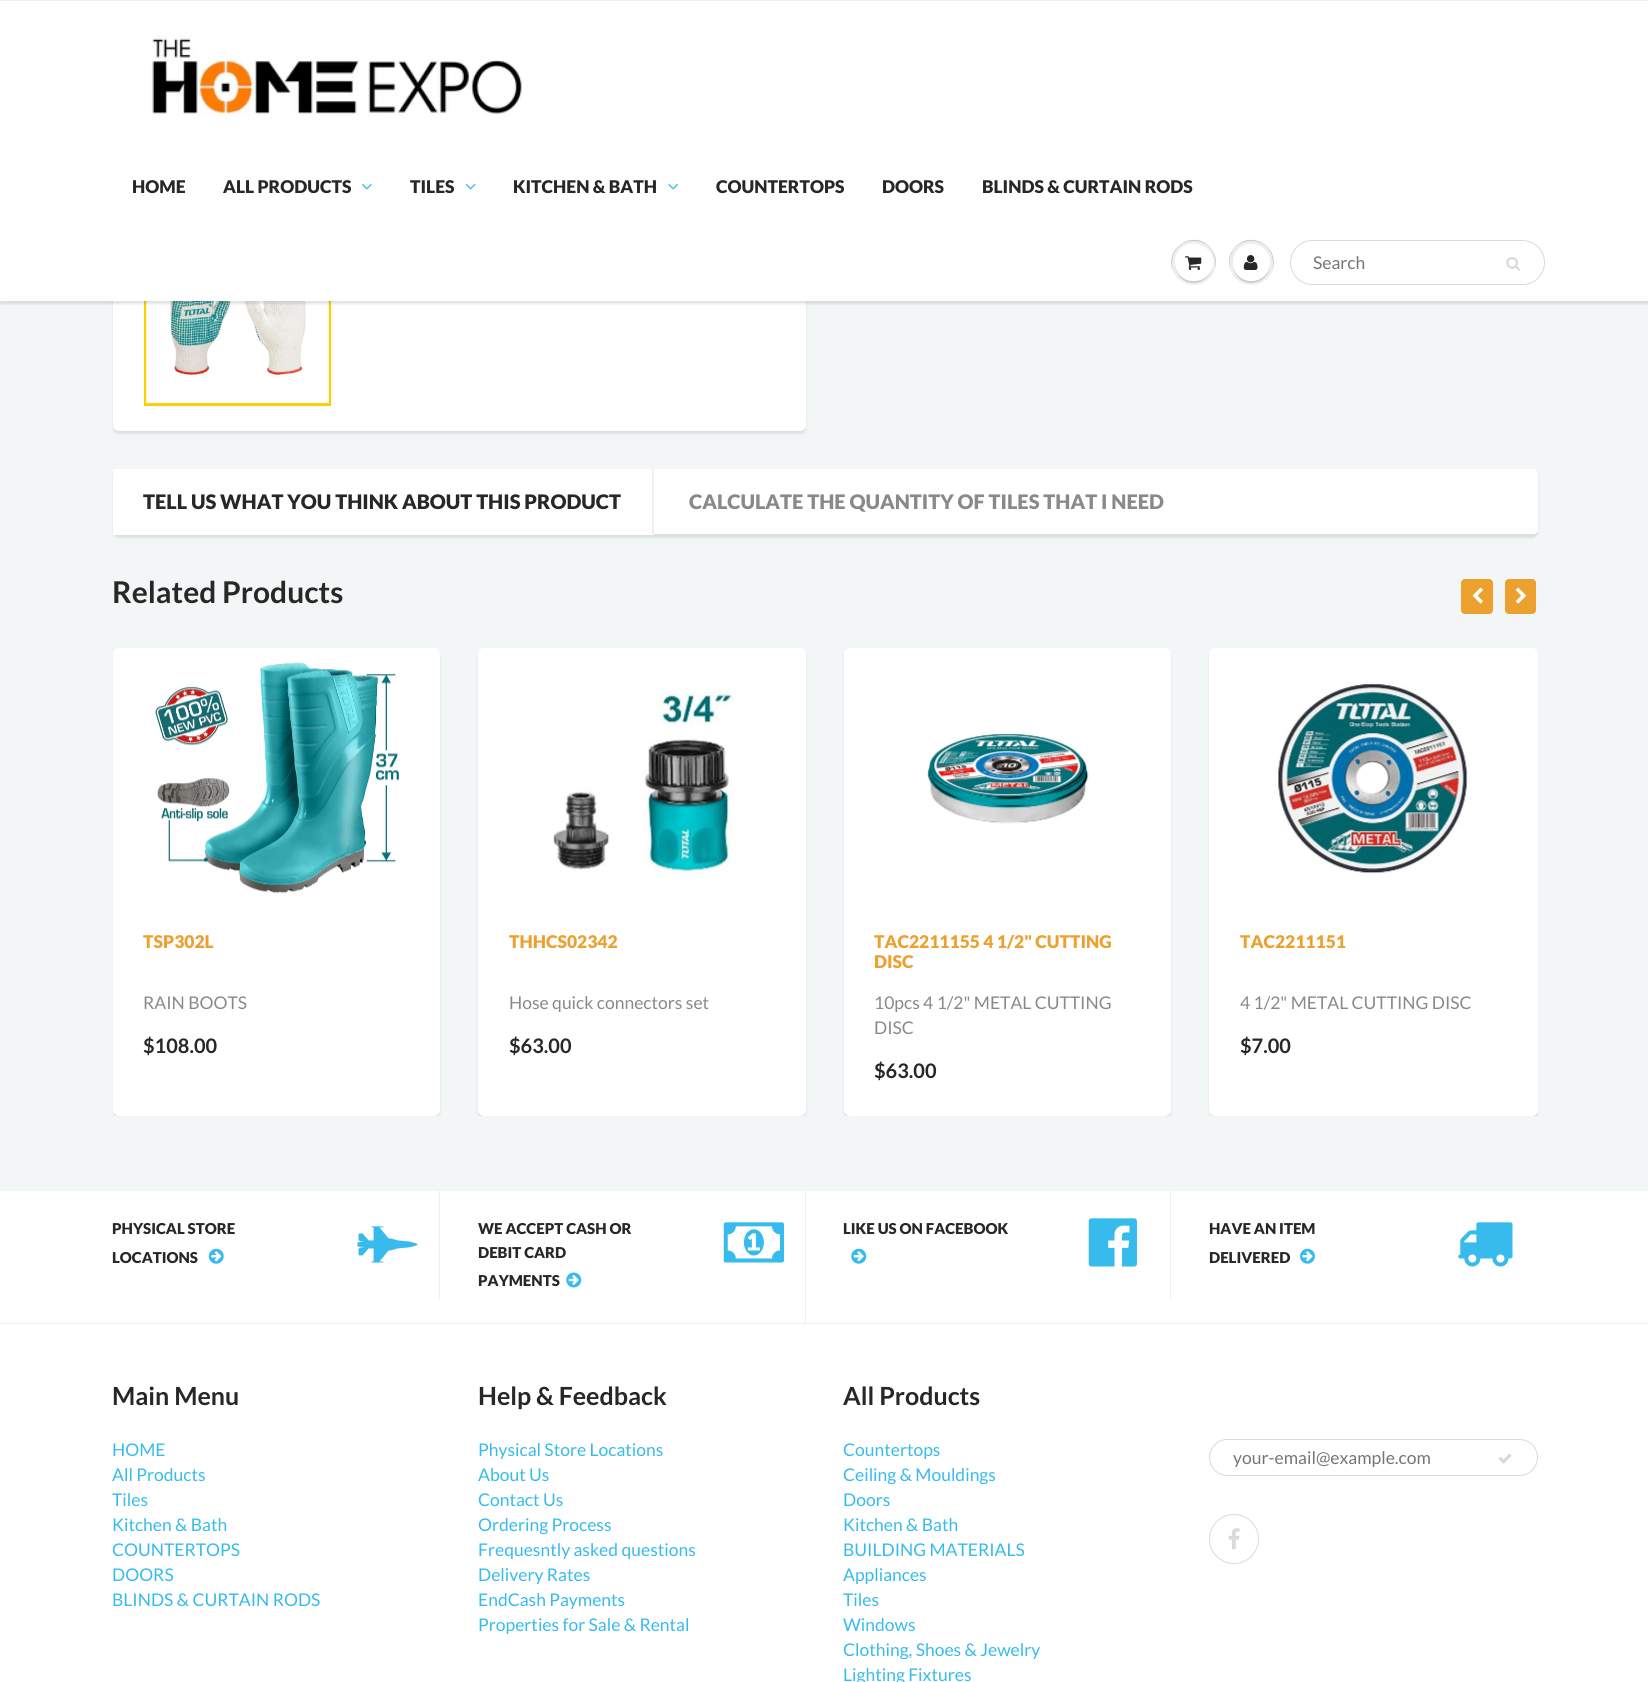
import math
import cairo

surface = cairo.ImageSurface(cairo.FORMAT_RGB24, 1648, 1682)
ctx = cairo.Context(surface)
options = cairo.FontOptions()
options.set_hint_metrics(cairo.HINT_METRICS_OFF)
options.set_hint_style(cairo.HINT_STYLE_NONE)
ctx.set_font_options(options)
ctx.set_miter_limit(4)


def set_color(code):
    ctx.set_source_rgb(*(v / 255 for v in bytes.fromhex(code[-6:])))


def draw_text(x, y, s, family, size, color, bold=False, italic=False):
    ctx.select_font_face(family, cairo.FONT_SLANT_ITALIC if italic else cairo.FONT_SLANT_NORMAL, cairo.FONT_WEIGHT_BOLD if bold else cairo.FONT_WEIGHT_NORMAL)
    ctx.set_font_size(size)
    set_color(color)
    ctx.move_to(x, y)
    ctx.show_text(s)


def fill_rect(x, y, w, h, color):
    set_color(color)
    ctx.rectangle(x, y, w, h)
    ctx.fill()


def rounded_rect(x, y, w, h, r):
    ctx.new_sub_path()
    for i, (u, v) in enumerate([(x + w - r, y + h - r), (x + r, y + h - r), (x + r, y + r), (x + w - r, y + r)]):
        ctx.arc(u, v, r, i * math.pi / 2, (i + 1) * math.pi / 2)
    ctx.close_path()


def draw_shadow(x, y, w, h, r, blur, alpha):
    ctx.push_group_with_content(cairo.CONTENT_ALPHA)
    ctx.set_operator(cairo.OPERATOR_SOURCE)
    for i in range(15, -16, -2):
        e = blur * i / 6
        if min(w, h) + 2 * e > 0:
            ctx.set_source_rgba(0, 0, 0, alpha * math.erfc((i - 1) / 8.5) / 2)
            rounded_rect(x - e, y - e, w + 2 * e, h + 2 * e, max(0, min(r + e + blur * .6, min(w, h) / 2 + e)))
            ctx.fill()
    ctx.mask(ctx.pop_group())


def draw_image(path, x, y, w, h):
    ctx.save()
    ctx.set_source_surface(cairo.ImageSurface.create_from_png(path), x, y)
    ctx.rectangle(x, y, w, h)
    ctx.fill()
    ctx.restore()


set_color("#ffffff")
ctx.paint()
fill_rect(0, 301, 1648, 890, "#f3f6f6")
set_color("#0b191c")
draw_shadow(113, -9, 693, 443, 6, 1, 0.1)
set_color("#ffffff")
rounded_rect(113, -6, 693, 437, 6)
ctx.fill()
ctx.rectangle(145.5, 220.5, 184, 184)
set_color("#fbcf00")
ctx.set_line_width(3)
ctx.stroke()
draw_image("assets/img8.png", 146, 301, 183, 103)
set_color("#0b191c")
draw_shadow(0, 3, 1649, 301, 0, 1, 0.12)
fill_rect(0, 1, 1648, 300, "#ffffff")
fill_rect(0, 0, 1648, 1, "#ecefef")
draw_image("assets/img1.png", 150, 35, 372, 81)
draw_text(132, 193, "HOME", "Lato Black", 17.5, "#282727")
draw_text(223, 193, "ALL PRODUCTS", "Lato Black", 17.5, "#282727")
draw_image("assets/img2.png", 362, 183, 10, 7)
draw_text(410, 193, "TILES", "Lato Black", 17.5, "#282727")
draw_image("assets/img3.png", 465, 183, 11, 7)
draw_text(513, 193, "KITCHEN & BATH", "Lato Black", 17.5, "#282727")
draw_image("assets/img4.png", 668, 183, 10, 7)
draw_text(716, 193, "COUNTERTOPS", "Lato Black", 17.5, "#282727")
draw_text(882, 193, "DOORS", "Lato Black", 17.5, "#282727")
draw_text(982, 193, "BLINDS & CURTAIN RODS", "Lato Black", 17.5, "#282727")
set_color("#edefef")
ctx.new_path()
ctx.arc(1193.5, 262.5, 22.5, 0, 2 * math.pi)
ctx.fill()
set_color("#c9cbcb")
ctx.new_path()
ctx.move_to(1194, 241)
ctx.curve_to(1210, 241, 1217, 255, 1215, 268)
ctx.curve_to(1217, 262, 1216, 255, 1212, 250)
ctx.curve_to(1197, 227, 1163, 247, 1173, 271)
ctx.curve_to(1169, 258, 1176, 241, 1194, 241)
ctx.close_path()
ctx.fill()
ctx.new_path()
ctx.move_to(1175, 263)
ctx.curve_to(1175, 268.5, 1177, 273.5, 1180.5, 277.5)
ctx.curve_to(1195, 292, 1219, 275.5, 1211.5, 257)
ctx.curve_to(1217, 275, 1194.5, 289.5, 1180.5, 276)
ctx.curve_to(1177.5, 272.5, 1175, 268, 1175, 263)
ctx.close_path()
ctx.fill()
set_color("#ffffff")
rounded_rect(1175, 244, 38, 37, 18.5)
ctx.fill()
ctx.new_path()
ctx.move_to(1194, 245)
ctx.curve_to(1210, 245, 1216, 262, 1210, 273)
ctx.curve_to(1224, 253, 1192, 231, 1178, 252)
ctx.curve_to(1175, 256, 1174, 262, 1176, 267)
ctx.curve_to(1174, 257, 1180, 245, 1194, 245)
ctx.close_path()
ctx.fill()
draw_image("assets/img5.png", 1185, 256, 17, 14)
set_color("#edefef")
ctx.arc(1251.5, 262.5, 22.5, 0, 2 * math.pi)
ctx.fill()
set_color("#c9cbcb")
ctx.new_path()
ctx.move_to(1251, 241)
ctx.curve_to(1269, 241, 1276, 258, 1272, 271)
ctx.curve_to(1282, 247, 1248, 227, 1233, 250)
ctx.curve_to(1229, 255, 1228, 262, 1230, 268)
ctx.curve_to(1228, 255, 1235, 241, 1251, 241)
ctx.close_path()
ctx.fill()
ctx.new_path()
ctx.move_to(1233.5, 268)
ctx.curve_to(1237.5, 290, 1270.5, 287, 1270, 263)
ctx.curve_to(1269.5, 284, 1239.5, 288, 1233.5, 268)
ctx.close_path()
ctx.fill()
set_color("#ffffff")
ctx.arc(1251.5, 262.5, 18.5, 0, 2 * math.pi)
ctx.fill()
ctx.new_path()
ctx.move_to(1251, 245)
ctx.curve_to(1265, 245, 1271, 256.5, 1269.5, 267)
ctx.curve_to(1274.5, 247.5, 1248, 235, 1236, 252)
ctx.curve_to(1234, 255.5, 1233, 259, 1233, 263)
ctx.curve_to(1233, 254, 1239, 245, 1251, 245)
ctx.close_path()
ctx.fill()
draw_image("assets/img6.png", 1243, 255, 15, 15)
rounded_rect(1290.5, 240.5, 254, 44, 22)
set_color("#d7dbdb")
ctx.set_line_width(1)
ctx.stroke()
draw_text(1313, 269, "Search", "Lato", 17.5, "#757575")
draw_image("assets/img7.png", 1506, 257, 14, 14)
set_color("#0b191c")
draw_shadow(113, 471, 1425, 67, 6, 1, 0.1)
set_color("#ffffff")
rounded_rect(113, 469, 1425, 66, 6)
ctx.fill()
fill_rect(654, 534, 884, 1, "#dddddd")
fill_rect(113, 469, 5, 66, "#ffffff")
set_color("#efefef")
ctx.new_path()
ctx.move_to(654, 469)
ctx.line_to(654, 535)
ctx.line_to(652, 534)
ctx.line_to(652, 469)
ctx.close_path()
ctx.fill()
draw_text(143, 509, "TELL US WHAT YOU THINK ABOUT THIS PRODUCT", "Lato Black", 20, "#282727")
draw_text(689, 509, "CALCULATE THE QUANTITY OF TILES THAT I NEED", "Lato Black", 20, "#898989")
draw_text(112, 603, "Related Products", "Lato", 30, "#282727", bold=True)
set_color("#eca12f")
rounded_rect(1461, 579, 32, 35, 4)
ctx.fill()
draw_image("assets/img9.png", 1472, 587, 11, 17)
rounded_rect(1505, 579, 31, 35, 4)
ctx.fill()
draw_image("assets/img10.png", 1515, 587, 11, 17)
ctx.save()
ctx.rectangle(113, 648, 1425, 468)
ctx.clip()
set_color("#0b191c")
draw_shadow(113, 650, 327, 469, 6, 1, 0.1)
ctx.restore()
set_color("#ffffff")
rounded_rect(116, 651, 321, 462, 3)
ctx.fill_preserve()
ctx.set_line_width(6)
ctx.stroke()
draw_image("assets/img11.png", 155, 661, 246, 233)
draw_text(143, 948, "TSP302L", "Lato Black", 17.5, "#eca12f")
draw_text(143, 1009, "RAIN BOOTS", "Lato", 17.5, "#898989")
draw_text(143, 1053, "$108.00", "Lato", 20, "#282727", bold=True)
ctx.save()
ctx.rectangle(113, 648, 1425, 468)
ctx.clip()
set_color("#0b191c")
draw_shadow(478, 650, 328, 469, 6, 1, 0.1)
ctx.restore()
set_color("#ffffff")
rounded_rect(481, 651, 322, 462, 3)
ctx.fill_preserve()
ctx.stroke()
draw_image("assets/img12.png", 553, 690, 189, 186)
draw_text(509, 948, "THHCS02342", "Lato Black", 17.5, "#eca12f")
draw_text(509, 1009, "Hose quick connectors set", "Lato", 17.5, "#898989")
draw_text(509, 1053, "$63.00", "Lato", 20, "#282727", bold=True)
ctx.save()
ctx.rectangle(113, 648, 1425, 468)
ctx.clip()
set_color("#0b191c")
draw_shadow(844, 650, 327, 469, 6, 1, 0.1)
ctx.restore()
set_color("#ffffff")
rounded_rect(847, 651, 321, 462, 3)
ctx.fill_preserve()
ctx.stroke()
draw_image("assets/img13.png", 927, 732, 162, 92)
draw_text(874, 948, "TAC2211155 4 1/2\" CUTTING", "Lato Black", 17.5, "#eca12f")
draw_text(874, 968, "DISC", "Lato Black", 17.5, "#eca12f")
draw_text(874, 1009, "10pcs 4 1/2\" METAL CUTTING", "Lato", 17.5, "#898989")
draw_text(874, 1034, "DISC", "Lato", 17.5, "#898989")
draw_text(874, 1078, "$63.00", "Lato", 20, "#282727", bold=True)
ctx.save()
ctx.rectangle(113, 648, 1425, 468)
ctx.clip()
set_color("#0b191c")
draw_shadow(1209, 650, 329, 469, 6, 1, 0.1)
ctx.restore()
set_color("#ffffff")
rounded_rect(1212, 651, 323, 462, 3)
ctx.fill_preserve()
ctx.stroke()
draw_image("assets/img14.png", 1277, 683, 191, 191)
draw_text(1240, 948, "TAC2211151", "Lato Black", 17.5, "#eca12f")
draw_text(1240, 1009, "4 1/2\" METAL CUTTING DISC", "Lato", 17.5, "#898989")
draw_text(1240, 1053, "$7.00", "Lato", 20, "#282727", bold=True)
fill_rect(439, 1191, 1, 108, "#ecefef")
draw_text(112, 1234, "PHYSICAL STORE", "Lato Black", 15, "#282727")
draw_text(112, 1263, "LOCATIONS", "Lato Black", 15, "#282727")
draw_image("assets/img15.png", 208, 1248, 16, 16)
draw_image("assets/img16.png", 357, 1226, 61, 37)
fill_rect(805, 1191, 1, 132, "#ecefef")
draw_text(478, 1234, "WE ACCEPT CASH OR", "Lato Black", 15, "#282727")
draw_text(478, 1258, "DEBIT CARD", "Lato Black", 15, "#282727")
draw_text(478, 1286, "PAYMENTS", "Lato Black", 15, "#282727")
draw_image("assets/img17.png", 566, 1272, 16, 16)
draw_image("assets/img18.png", 723, 1222, 61, 41)
fill_rect(1170, 1191, 1, 108, "#ecefef")
draw_text(843, 1234, "LIKE US ON FACEBOOK", "Lato Black", 15, "#282727")
draw_image("assets/img19.png", 851, 1248, 16, 16)
draw_image("assets/img20.png", 1088, 1218, 49, 49)
draw_text(1209, 1234, "HAVE AN ITEM", "Lato Black", 15, "#282727")
draw_text(1209, 1263, "DELIVERED", "Lato Black", 15, "#282727")
draw_image("assets/img21.png", 1300, 1248, 15, 16)
draw_image("assets/img22.png", 1458, 1222, 55, 45)
fill_rect(0, 1323, 1648, 1, "#ecefef")
draw_text(112, 1405, "Main Menu", "Lato", 25, "#282727", bold=True)
draw_text(112, 1456, "HOME", "Lato", 17.5, "#37bbec")
draw_text(112, 1481, "All Products", "Lato", 17.5, "#37bbec")
draw_text(112, 1506, "Tiles", "Lato", 17.5, "#37bbec")
draw_text(112, 1531, "Kitchen & Bath", "Lato", 17.5, "#37bbec")
draw_text(112, 1556, "COUNTERTOPS", "Lato", 17.5, "#37bbec")
draw_text(112, 1581, "DOORS", "Lato", 17.5, "#37bbec")
draw_text(112, 1606, "BLINDS & CURTAIN RODS", "Lato", 17.5, "#37bbec")
draw_text(478, 1405, "Help & Feedback", "Lato", 25, "#282727", bold=True)
draw_text(478, 1456, "Physical Store Locations", "Lato", 17.5, "#37bbec")
draw_text(478, 1481, "About Us", "Lato", 17.5, "#37bbec")
draw_text(478, 1506, "Contact Us", "Lato", 17.5, "#37bbec")
draw_text(478, 1531, "Ordering Process", "Lato", 17.5, "#37bbec")
draw_text(478, 1556, "Frequesntly asked questions", "Lato", 17.5, "#37bbec")
draw_text(478, 1581, "Delivery Rates", "Lato", 17.5, "#37bbec")
draw_text(478, 1606, "EndCash Payments", "Lato", 17.5, "#37bbec")
draw_text(478, 1631, "Properties for Sale & Rental", "Lato", 17.5, "#37bbec")
draw_text(843, 1405, "All Products", "Lato", 25, "#282727", bold=True)
draw_text(843, 1456, "Countertops", "Lato", 17.5, "#37bbec")
draw_text(843, 1481, "Ceiling & Mouldings", "Lato", 17.5, "#37bbec")
draw_text(843, 1506, "Doors", "Lato", 17.5, "#37bbec")
draw_text(843, 1531, "Kitchen & Bath", "Lato", 17.5, "#37bbec")
draw_text(843, 1556, "BUILDING MATERIALS", "Lato", 17.5, "#37bbec")
draw_text(843, 1581, "Appliances", "Lato", 17.5, "#37bbec")
draw_text(843, 1606, "Tiles", "Lato", 17.5, "#37bbec")
draw_text(843, 1631, "Windows", "Lato", 17.5, "#37bbec")
draw_text(843, 1656, "Clothing, Shoes & Jewelry", "Lato", 17.5, "#37bbec")
draw_text(843, 1681, "Lighting Fixtures", "Lato", 17.5, "#37bbec")
rounded_rect(1209.5, 1439.5, 328, 36, 18)
set_color("#d7dbdb")
ctx.set_line_width(1)
ctx.stroke()
draw_text(1233, 1464, "your-email@example.com", "Lato", 17.5, "#757575")
draw_image("assets/img23.png", 1498, 1453, 14, 11)
ctx.arc(1234, 1539, 24.5, 0, 2 * math.pi)
set_color("#d7dbdb")
ctx.stroke()
draw_image("assets/img24.png", 1228, 1528, 12, 22)
surface.write_to_png("output.png")
